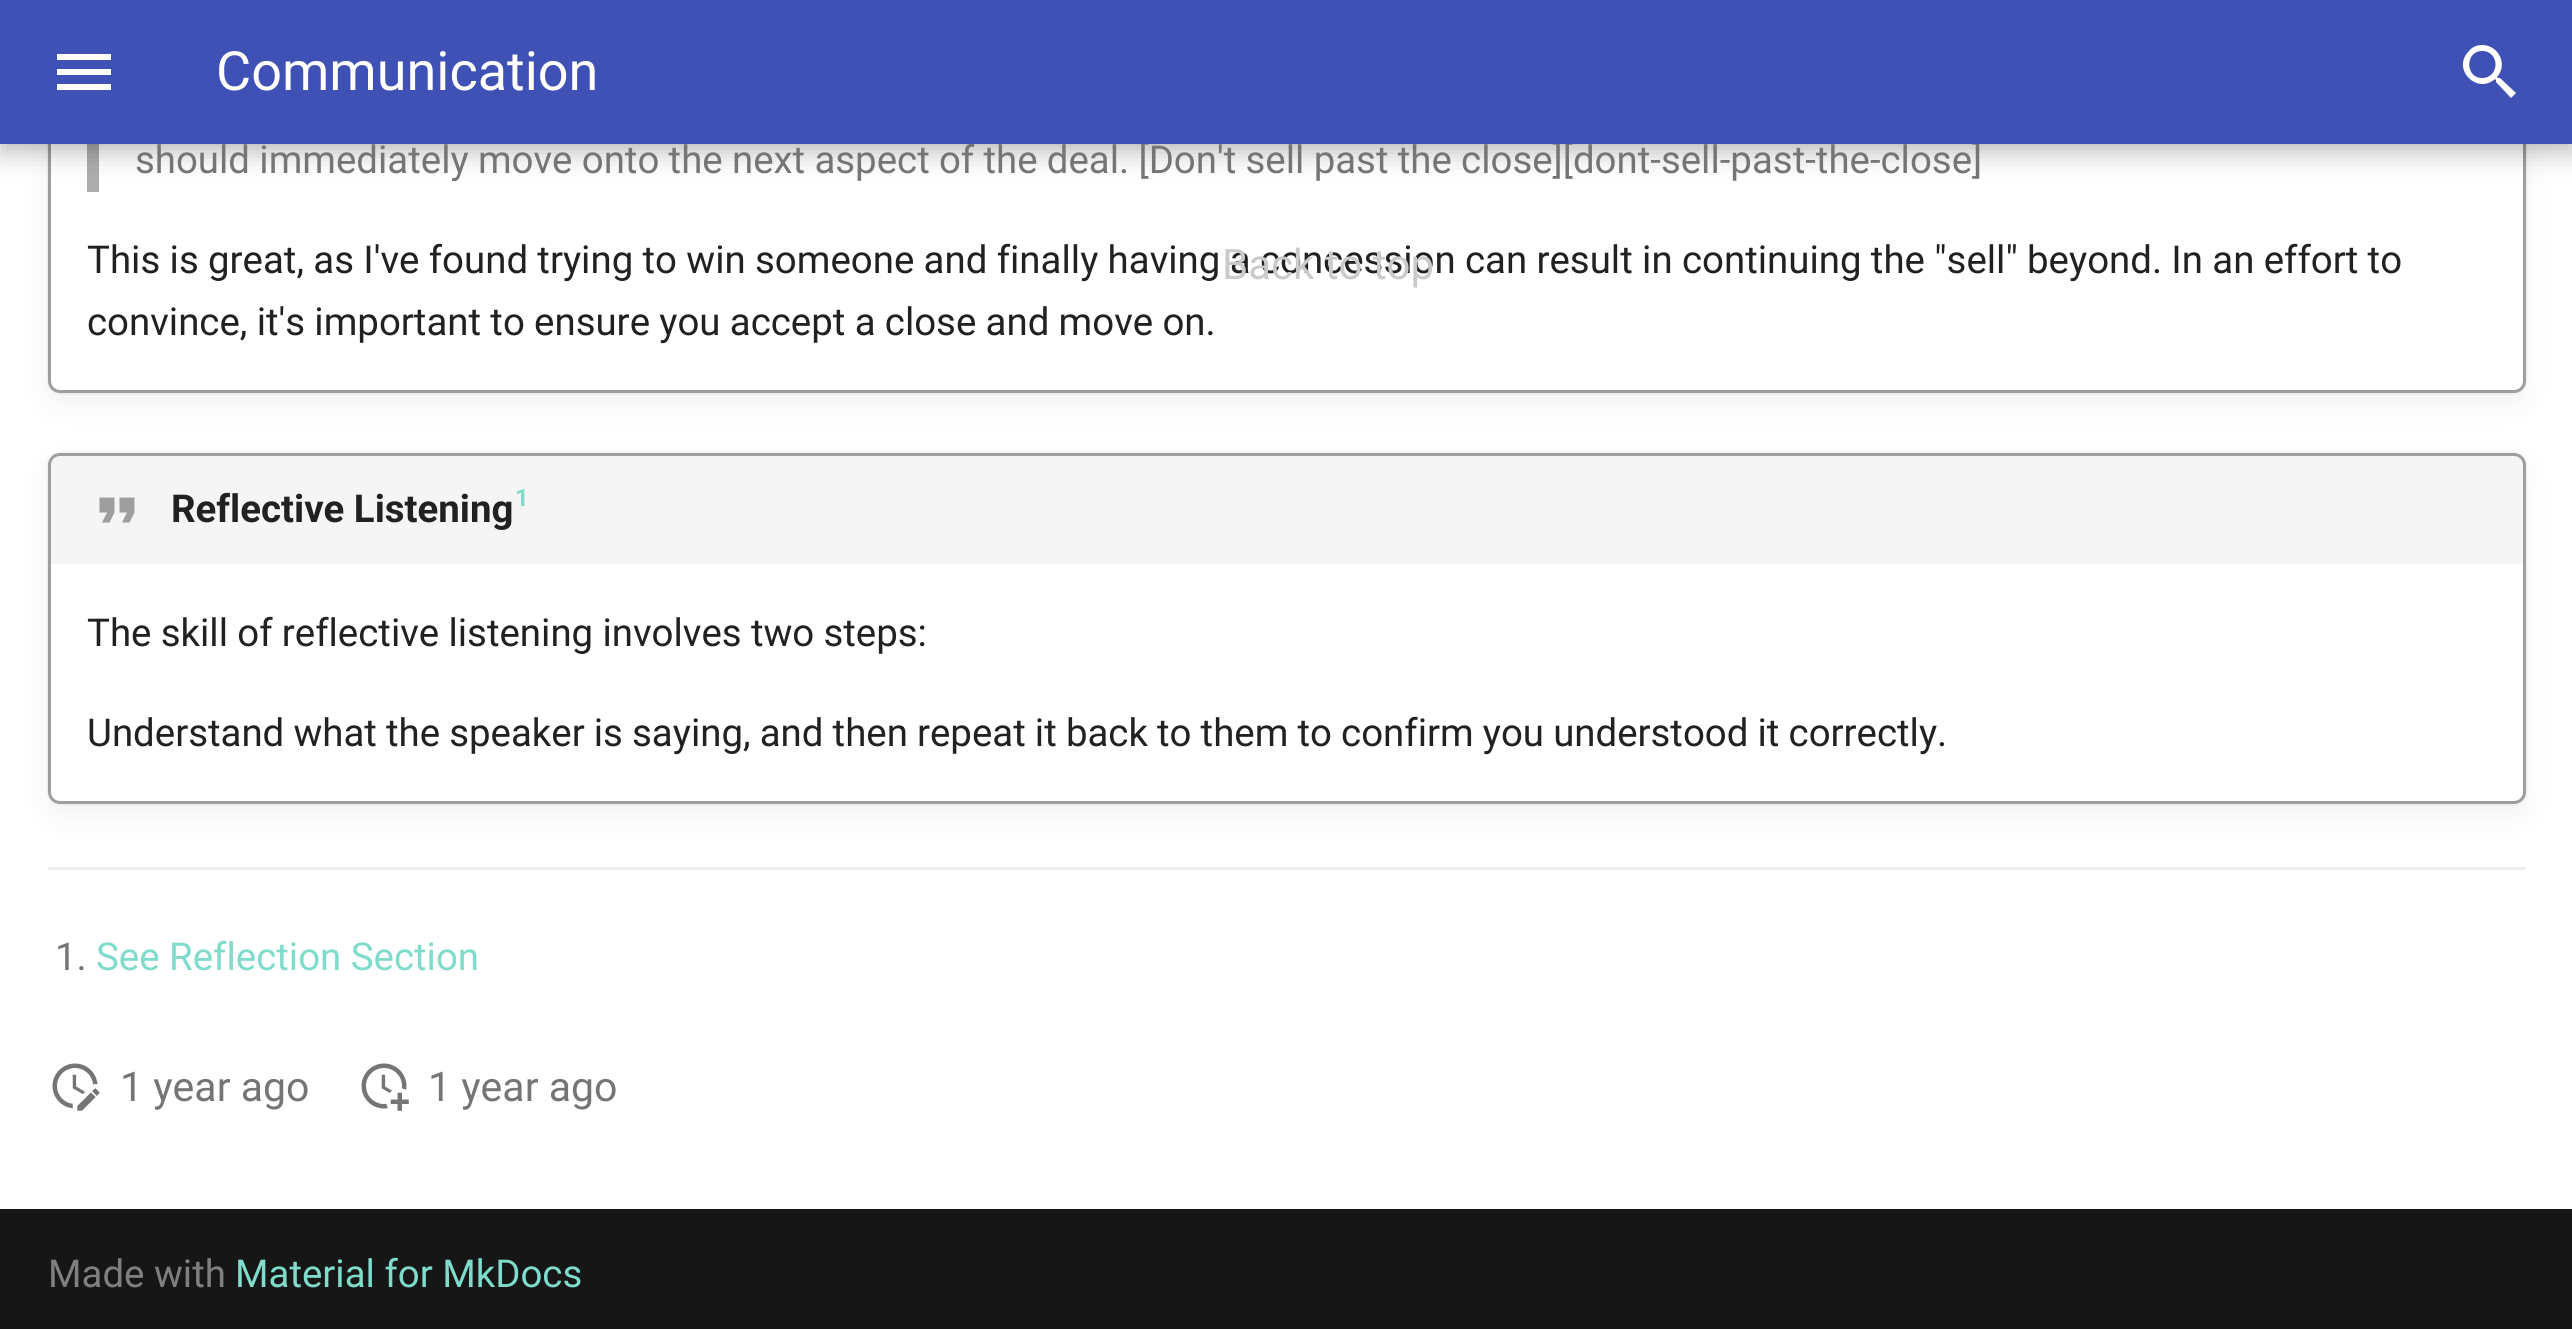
import math
import cairo

surface = cairo.ImageSurface(cairo.FORMAT_RGB24, 2572, 1329)
ctx = cairo.Context(surface)
options = cairo.FontOptions()
options.set_hint_metrics(cairo.HINT_METRICS_OFF)
options.set_hint_style(cairo.HINT_STYLE_NONE)
ctx.set_font_options(options)
ctx.set_miter_limit(4)


def set_color(code):
    ctx.set_source_rgb(*(v / 255 for v in bytes.fromhex(code[-6:])))


def draw_text(x, y, s, family, size, color, bold=False, italic=False):
    ctx.select_font_face(family, cairo.FONT_SLANT_ITALIC if italic else cairo.FONT_SLANT_NORMAL, cairo.FONT_WEIGHT_BOLD if bold else cairo.FONT_WEIGHT_NORMAL)
    ctx.set_font_size(size)
    set_color(color)
    ctx.move_to(x, y)
    ctx.show_text(s)


def draw_spaced(x, y, s, letter, word):
    ctx.move_to(x, y)
    for ch in s:
        ctx.show_text(ch)
        ctx.rel_move_to(letter + word * (ch == ' '), 0)


def fill_rect(x, y, w, h, color):
    set_color(color)
    ctx.rectangle(x, y, w, h)
    ctx.fill()


def rounded_rect(x, y, w, h, r):
    ctx.new_sub_path()
    for i, (u, v) in enumerate([(x + w - r, y + h - r), (x + r, y + h - r), (x + r, y + r), (x + w - r, y + r)]):
        ctx.arc(u, v, r, i * math.pi / 2, (i + 1) * math.pi / 2)
    ctx.close_path()


def draw_shadow(x, y, w, h, r, blur, alpha):
    ctx.push_group_with_content(cairo.CONTENT_ALPHA)
    ctx.set_operator(cairo.OPERATOR_SOURCE)
    for i in range(15, -16, -2):
        e = blur * i / 6
        if min(w, h) + 2 * e > 0:
            ctx.set_source_rgba(0, 0, 0, alpha * math.erfc((i - 1) / 8.5) / 2)
            rounded_rect(x - e, y - e, w + 2 * e, h + 2 * e, max(0, min(r + e + blur * .6, min(w, h) / 2 + e)))
            ctx.fill()
    ctx.mask(ctx.pop_group())


def draw_image(path, x, y, w, h):
    ctx.save()
    ctx.set_source_surface(cairo.ImageSurface.create_from_png(path), x, y)
    ctx.rectangle(x, y, w, h)
    ctx.fill()
    ctx.restore()


set_color("#ffffff")
ctx.paint()
set_color("#000000")
draw_shadow(48, -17, 2478, 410, 12, 1.5, 0.1)
draw_shadow(48, -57, 2478, 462, 12, 15, 0.05)
set_color("#ffffff")
rounded_rect(49.5, -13.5, 2475, 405, 10.5)
ctx.fill_preserve()
set_color("#9e9e9e")
ctx.set_line_width(3)
ctx.stroke()
fill_rect(87, 144, 12, 48, "#adadad")
set_color("#000000")
draw_shadow(0, 12, 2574, 144, 0, 12, 0.2)
draw_shadow(0, 0, 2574, 144, 0, 6, 0.1)
ctx.select_font_face("Roboto")
ctx.set_font_size(38.4)
set_color("#757575")
draw_spaced(135, 173, "should immediately move onto the next aspect of the deal. [Don't sell past the close][dont-sell-past-the-close]", 0, -0.25)
fill_rect(0, 0, 2572, 144, "#4051b5")
set_color("#ffffff")
ctx.new_path()
ctx.move_to(57, 54)
ctx.line_to(111, 54)
ctx.line_to(111, 60)
ctx.line_to(57, 60)
ctx.line_to(57, 54)
ctx.move_to(57, 69)
ctx.line_to(111, 69)
ctx.line_to(111, 75)
ctx.line_to(57, 75)
ctx.line_to(57, 69)
ctx.move_to(57, 84)
ctx.line_to(111, 84)
ctx.line_to(111, 90)
ctx.line_to(57, 90)
ctx.close_path()
ctx.fill()
draw_text(216, 90, "Communication", "Roboto", 54, "#ffffff")
ctx.new_path()
ctx.move_to(2482, 45)
ctx.curve_to(2499, 45, 2508, 65, 2497, 77)
ctx.line_to(2498, 78)
ctx.line_to(2500, 78)
ctx.line_to(2516, 93)
ctx.line_to(2511, 98)
ctx.line_to(2496, 82)
ctx.line_to(2496, 80)
ctx.line_to(2495, 79)
ctx.curve_to(2477, 95, 2451, 69, 2469, 51)
ctx.curve_to(2472, 47, 2477, 45, 2482, 45)
ctx.move_to(2482, 51)
ctx.curve_to(2465, 51, 2465, 78, 2482, 78)
ctx.curve_to(2500, 78, 2500, 51, 2482, 51)
ctx.close_path()
ctx.fill()
ctx.set_font_size(38.4)
set_color("#212121")
draw_spaced(87, 273, "This is great, as I've found trying to win someone and finally having a concession can result in continuing the \"sell\" beyond. In an effort to", 0, -0.2)
draw_spaced(87, 335, "convince, it's important to ensure you accept a close and move on.", 0, -0.25)
set_color("#000000")
draw_shadow(48, 453, 2478, 351, 12, 1.5, 0.1)
draw_shadow(48, 465, 2478, 351, 12, 15, 0.05)
set_color("#ffffff")
rounded_rect(49.5, 454.5, 2475, 348, 10.5)
ctx.fill_preserve()
set_color("#9e9e9e")
ctx.stroke()
ctx.set_source_rgba(0.62, 0.62, 0.62, 0.1)
ctx.new_path()
ctx.move_to(57, 456)
ctx.line_to(2517, 456)
ctx.curve_to(2520.5, 456, 2523, 458.5, 2523, 462)
ctx.line_to(2523, 564)
ctx.line_to(51, 564)
ctx.line_to(51, 462)
ctx.curve_to(51, 458.5, 53.5, 456, 57, 456)
ctx.close_path()
ctx.fill()
draw_image("assets/img1.png", 99, 497, 36, 26)
draw_text(171, 522, "Reflective Listening", "Roboto", 38.4, "#212121", bold=True)
draw_text(515, 506, "1", "Roboto", 24, "#7fdbca", bold=True)
ctx.select_font_face("Roboto")
ctx.set_font_size(38.4)
set_color("#212121")
draw_spaced(87, 646, "The skill of reflective listening involves two steps:", 0, -0.25)
draw_spaced(87, 746, "Understand what the speaker is saying, and then repeat it back to them to confirm you understood it correctly.", 0, -0.4)
fill_rect(48, 867, 2478, 3, "#ededed")
draw_text(55, 970, "1.", "Roboto", 38.4, "#757575")
draw_text(96, 970, "See Reflection Section", "Roboto", 38.4, "#7fdbca")
draw_image("assets/img2.png", 52, 1063, 48, 48)
draw_text(120, 1101, "1 year ago", "Roboto", 41, "#757575")
draw_image("assets/img3.png", 361, 1063, 48, 48)
draw_text(428, 1101, "1 year ago", "Roboto", 41, "#757575")
draw_text(1222, 279, "Back to top", "Roboto", 42, "#cacaca")
fill_rect(0, 1209, 2572, 120, "#161616")
draw_text(48, 1287, "Made with", "Roboto", 38.4, "#7f7f7f")
draw_text(235, 1287, "Material for MkDocs", "Roboto", 38.4, "#7fdbca")
surface.write_to_png("output.png")
